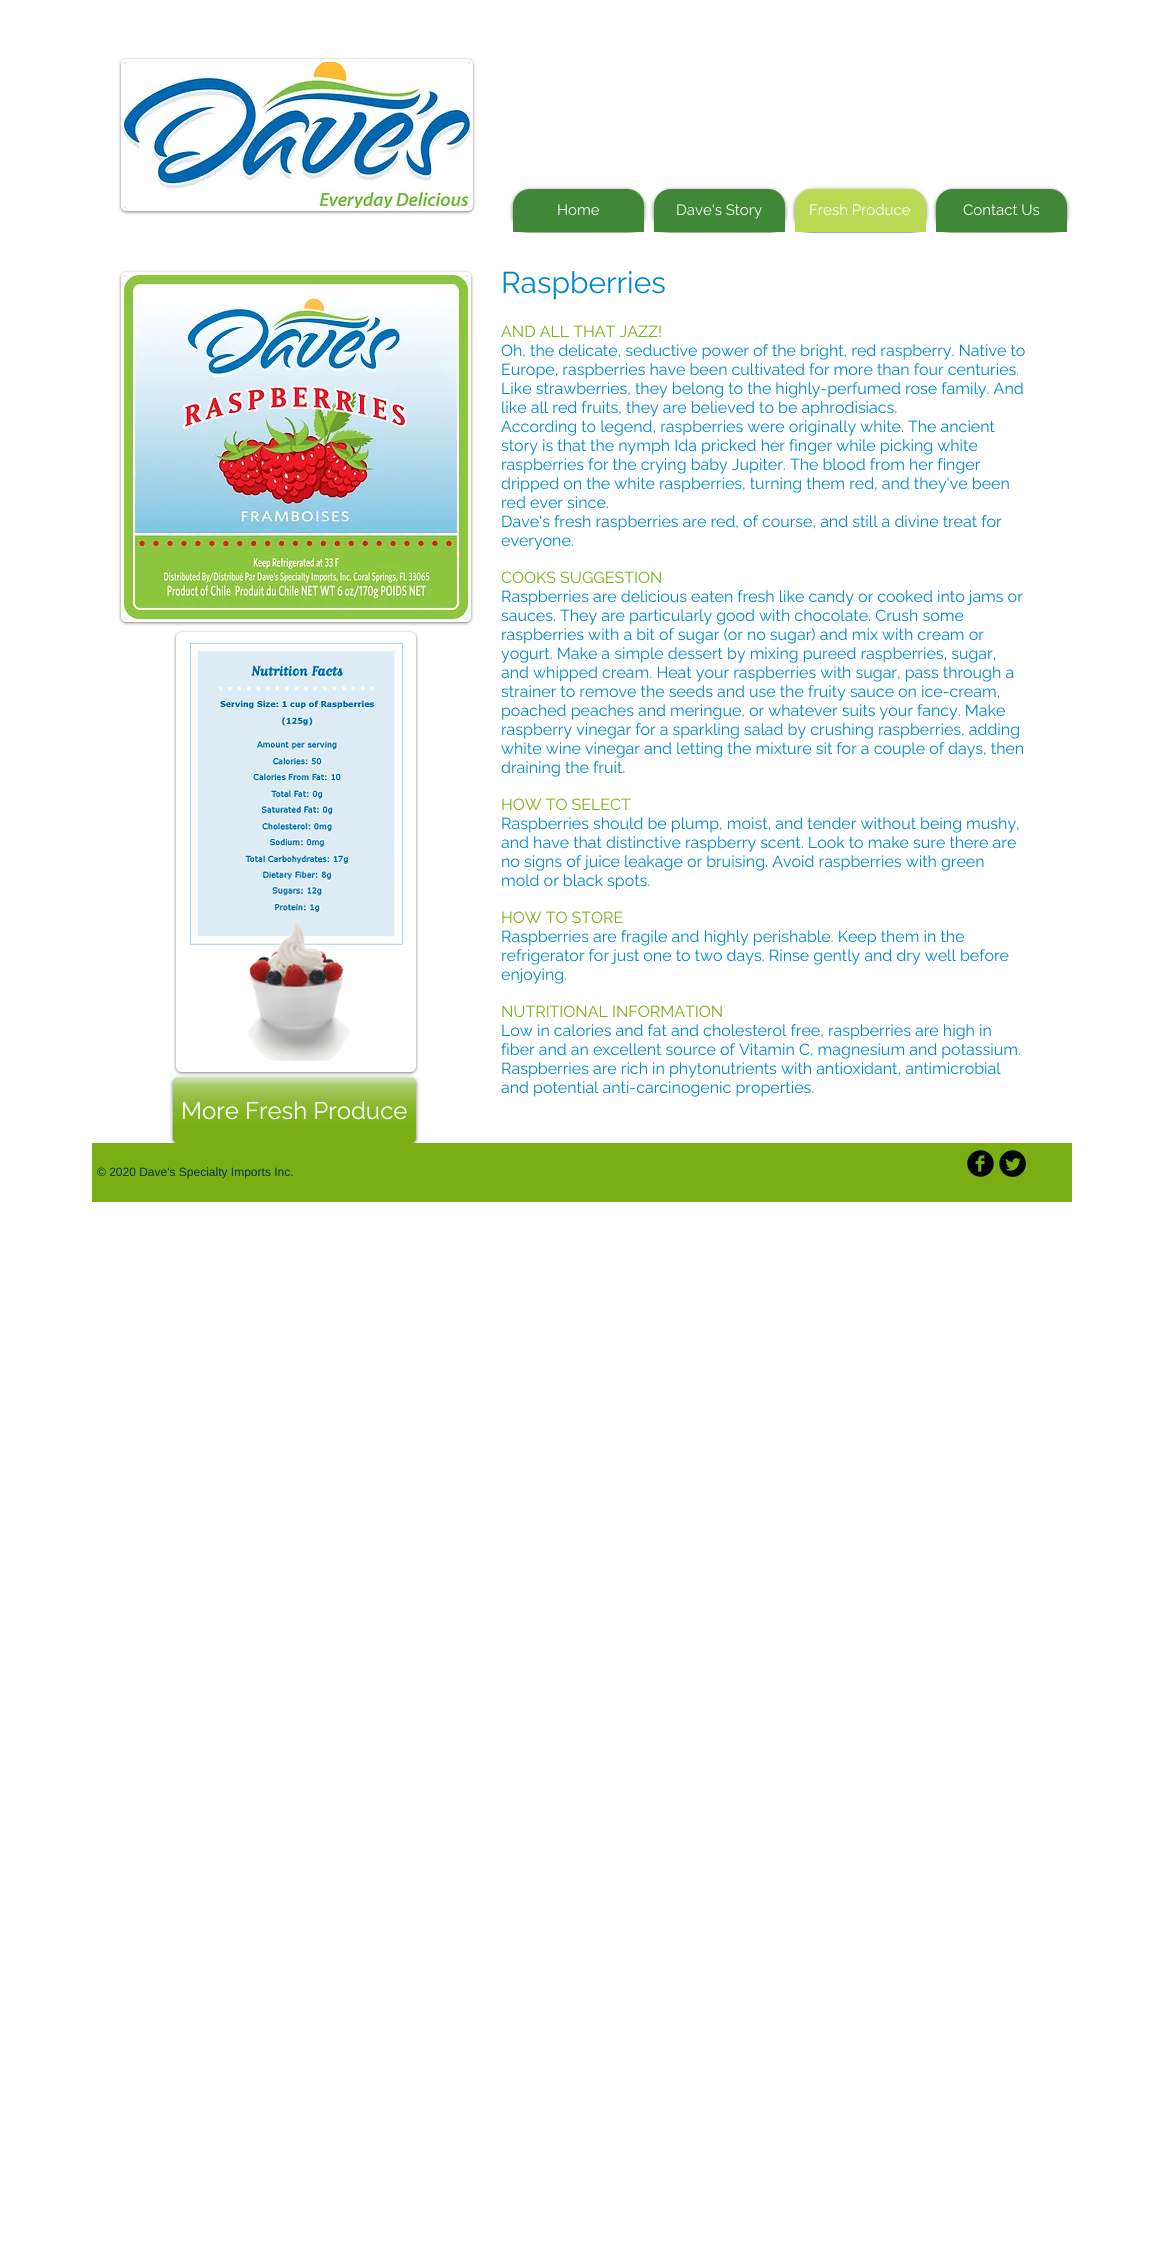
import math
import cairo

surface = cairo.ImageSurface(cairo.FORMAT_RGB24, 1163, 2254)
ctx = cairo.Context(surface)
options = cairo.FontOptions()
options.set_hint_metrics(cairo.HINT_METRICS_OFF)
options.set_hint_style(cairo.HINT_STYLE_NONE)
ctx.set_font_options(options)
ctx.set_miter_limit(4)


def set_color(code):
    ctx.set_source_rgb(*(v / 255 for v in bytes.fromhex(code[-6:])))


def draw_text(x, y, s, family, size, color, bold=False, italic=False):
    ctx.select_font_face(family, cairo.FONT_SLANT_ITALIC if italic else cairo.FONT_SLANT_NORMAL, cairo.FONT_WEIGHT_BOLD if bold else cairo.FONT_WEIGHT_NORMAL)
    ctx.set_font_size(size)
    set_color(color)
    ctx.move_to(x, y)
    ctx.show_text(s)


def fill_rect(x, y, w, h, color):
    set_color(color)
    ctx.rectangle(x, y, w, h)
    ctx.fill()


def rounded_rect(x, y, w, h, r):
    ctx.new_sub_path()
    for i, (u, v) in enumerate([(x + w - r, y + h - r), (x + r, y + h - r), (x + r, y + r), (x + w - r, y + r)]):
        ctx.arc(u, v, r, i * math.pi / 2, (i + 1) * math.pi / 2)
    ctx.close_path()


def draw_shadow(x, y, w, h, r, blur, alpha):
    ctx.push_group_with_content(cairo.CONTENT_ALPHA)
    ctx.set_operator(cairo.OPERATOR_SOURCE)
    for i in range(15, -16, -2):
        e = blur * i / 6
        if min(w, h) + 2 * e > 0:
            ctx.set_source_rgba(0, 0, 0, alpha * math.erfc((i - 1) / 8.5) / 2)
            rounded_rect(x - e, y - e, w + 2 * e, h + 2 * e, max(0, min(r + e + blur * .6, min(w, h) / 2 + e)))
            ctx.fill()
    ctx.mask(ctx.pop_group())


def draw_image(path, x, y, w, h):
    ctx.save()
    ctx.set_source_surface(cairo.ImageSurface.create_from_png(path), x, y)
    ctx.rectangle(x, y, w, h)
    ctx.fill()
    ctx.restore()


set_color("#ffffff")
ctx.paint()
set_color("#000000")
draw_shadow(121, 60, 352, 152, 5, 1.5, 0.5)
rounded_rect(122.5, 60.5, 349, 149, 3.5)
set_color("#ffffff")
ctx.set_line_width(3)
ctx.stroke()
draw_image("assets/img1.png", 124, 62, 346, 146)
set_color("#000000")
draw_shadow(513, 190, 131, 43, 17, 2, 0.6)
set_color("#408837")
ctx.new_path()
ctx.move_to(530, 189)
ctx.line_to(627, 189)
ctx.curve_to(636.5, 189, 644, 196.5, 644, 206)
ctx.line_to(644, 232)
ctx.line_to(513, 232)
ctx.line_to(513, 206)
ctx.curve_to(513, 196.5, 520.5, 189, 530, 189)
ctx.close_path()
ctx.fill()
draw_text(557, 215, "Home", "Raleway", 15, "#ffffff")
set_color("#000000")
draw_shadow(654, 190, 131, 43, 17, 2, 0.6)
set_color("#408837")
ctx.new_path()
ctx.move_to(671, 189)
ctx.line_to(768, 189)
ctx.curve_to(777.5, 189, 785, 196.5, 785, 206)
ctx.line_to(785, 232)
ctx.line_to(654, 232)
ctx.line_to(654, 206)
ctx.curve_to(654, 196.5, 661.5, 189, 671, 189)
ctx.close_path()
ctx.fill()
draw_text(676, 215, "Dave's Story", "Raleway", 15, "#ffffff")
set_color("#000000")
draw_shadow(795, 190, 131, 43, 17, 2, 0.6)
set_color("#bada55")
ctx.new_path()
ctx.move_to(812, 189)
ctx.line_to(909, 189)
ctx.curve_to(918.5, 189, 926, 196.5, 926, 206)
ctx.line_to(926, 232)
ctx.line_to(795, 232)
ctx.line_to(795, 206)
ctx.curve_to(795, 196.5, 802.5, 189, 812, 189)
ctx.close_path()
ctx.fill()
draw_text(809, 215, "Fresh Produce", "Raleway", 15, "#ffffff")
set_color("#000000")
draw_shadow(936, 190, 131, 43, 17, 2, 0.6)
set_color("#408837")
ctx.new_path()
ctx.move_to(953, 189)
ctx.line_to(1050, 189)
ctx.curve_to(1059.5, 189, 1067, 196.5, 1067, 206)
ctx.line_to(1067, 232)
ctx.line_to(936, 232)
ctx.line_to(936, 206)
ctx.curve_to(936, 196.5, 943.5, 189, 953, 189)
ctx.close_path()
ctx.fill()
draw_text(963, 215, "Contact Us", "Raleway", 15, "#ffffff")
fill_rect(518, 233, 544, 4, "#ffffff")
set_color("#000000")
draw_shadow(121, 273, 350, 350, 5, 1.5, 0.5)
rounded_rect(122.5, 273.5, 347, 347, 3.5)
set_color("#ffffff")
ctx.stroke()
draw_image("assets/img2.png", 124, 275, 344, 344)
draw_text(501, 293, "Raspberries", "Raleway", 30, "#0088cb")
draw_text(501, 337, "AND ALL THAT JAZZ!", "Raleway", 16, "#79af13")
draw_text(501, 356, "Oh, the delicate, seductive power of the bright, red raspberry. Native to", "Raleway", 16, "#0088cb")
draw_text(501, 375, "Europe, raspberries have been cultivated for more than four centuries.", "Raleway", 16, "#0088cb")
draw_text(501, 394, "Like strawberries, they belong to the highly-perfumed rose family. And", "Raleway", 16, "#0088cb")
draw_text(501, 413, "like all red fruits, they are believed to be aphrodisiacs.", "Raleway", 16, "#0088cb")
draw_text(501, 432, "According to legend, raspberries were originally white. The ancient", "Raleway", 16, "#0088cb")
draw_text(501, 451, "story is that the nymph Ida pricked her finger while picking white", "Raleway", 16, "#0088cb")
draw_text(501, 470, "raspberries for the crying baby Jupiter. The blood from her finger", "Raleway", 16, "#0088cb")
draw_text(501, 489, "dripped on the white raspberries, turning them red, and they've been", "Raleway", 16, "#0088cb")
draw_text(501, 508, "red ever since.", "Raleway", 16, "#0088cb")
draw_text(501, 527, "Dave's fresh raspberries are red, of course, and still a divine treat for", "Raleway", 16, "#0088cb")
draw_text(501, 546, "everyone.", "Raleway", 16, "#0088cb")
draw_text(501, 583, "COOKS SUGGESTION", "Raleway", 16, "#79af13")
draw_text(501, 602, "Raspberries are delicious eaten fresh like candy or cooked into jams or", "Raleway", 16, "#0088cb")
draw_text(501, 621, "sauces. They are particularly good with chocolate. Crush some", "Raleway", 16, "#0088cb")
draw_text(501, 640, "raspberries with a bit of sugar (or no sugar) and mix with cream or", "Raleway", 16, "#0088cb")
draw_text(501, 659, "yogurt. Make a simple dessert by mixing pureed raspberries, sugar,", "Raleway", 16, "#0088cb")
draw_text(501, 678, "and whipped cream. Heat your raspberries with sugar, pass through a", "Raleway", 16, "#0088cb")
draw_text(501, 697, "strainer to remove the seeds and use the fruity sauce on ice-cream,", "Raleway", 16, "#0088cb")
draw_text(501, 716, "poached peaches and meringue, or whatever suits your fancy. Make", "Raleway", 16, "#0088cb")
draw_text(501, 735, "raspberry vinegar for a sparkling salad by crushing raspberries, adding", "Raleway", 16, "#0088cb")
draw_text(501, 754, "white wine vinegar and letting the mixture sit for a couple of days, then", "Raleway", 16, "#0088cb")
draw_text(501, 773, "draining the fruit.", "Raleway", 16, "#0088cb")
draw_text(501, 810, "HOW TO SELECT", "Raleway", 16, "#79af13")
draw_text(501, 829, "Raspberries should be plump, moist, and tender without being mushy,", "Raleway", 16, "#0088cb")
draw_text(501, 848, "and have that distinctive raspberry scent. Look to make sure there are", "Raleway", 16, "#0088cb")
draw_text(501, 867, "no signs of juice leakage or bruising. Avoid raspberries with green", "Raleway", 16, "#0088cb")
draw_text(501, 886, "mold or black spots.", "Raleway", 16, "#0088cb")
draw_text(501, 923, "HOW TO STORE", "Raleway", 16, "#79af13")
draw_text(501, 942, "Raspberries are fragile and highly perishable. Keep them in the", "Raleway", 16, "#0088cb")
draw_text(501, 961, "refrigerator for just one to two days. Rinse gently and dry well before", "Raleway", 16, "#0088cb")
draw_text(501, 980, "enjoying.", "Raleway", 16, "#0088cb")
draw_text(501, 1017, "NUTRITIONAL INFORMATION", "Raleway", 16, "#79af13")
draw_text(501, 1036, "Low in calories and fat and cholesterol free, raspberries are high in", "Raleway", 16, "#0088cb")
draw_text(501, 1055, "fiber and an excellent source of Vitamin C, magnesium and potassium.", "Raleway", 16, "#0088cb")
draw_text(501, 1074, "Raspberries are rich in phytonutrients with antioxidant, antimicrobial", "Raleway", 16, "#0088cb")
draw_text(501, 1093, "and potential anti-carcinogenic properties.", "Raleway", 16, "#0088cb")
set_color("#000000")
draw_shadow(176, 633, 240, 440, 5, 1.5, 0.5)
set_color("#ffffff")
rounded_rect(177.5, 633.5, 237, 437, 3.5)
ctx.fill_preserve()
ctx.stroke()
draw_image("assets/img3.png", 190, 642, 213, 419)
set_color("#000000")
draw_shadow(173, 1079, 243, 65, 5, 2, 0.6)
set_color("#79af13")
rounded_rect(173, 1078, 243, 65, 5)
ctx.fill()
draw_image("assets/img4.png", 173, 1078, 243, 46)
draw_text(181, 1119, "More Fresh Produce", "Raleway", 24, "#ffffff")
fill_rect(92, 1143, 980, 59, "#79af13")
draw_text(97, 1176, "© 2020 Dave's Specialty Imports Inc.", "Liberation Sans", 12, "#003448")
draw_image("assets/img5.png", 967, 1150, 27, 27)
draw_image("assets/img6.png", 999, 1150, 27, 27)
surface.write_to_png("output.png")
